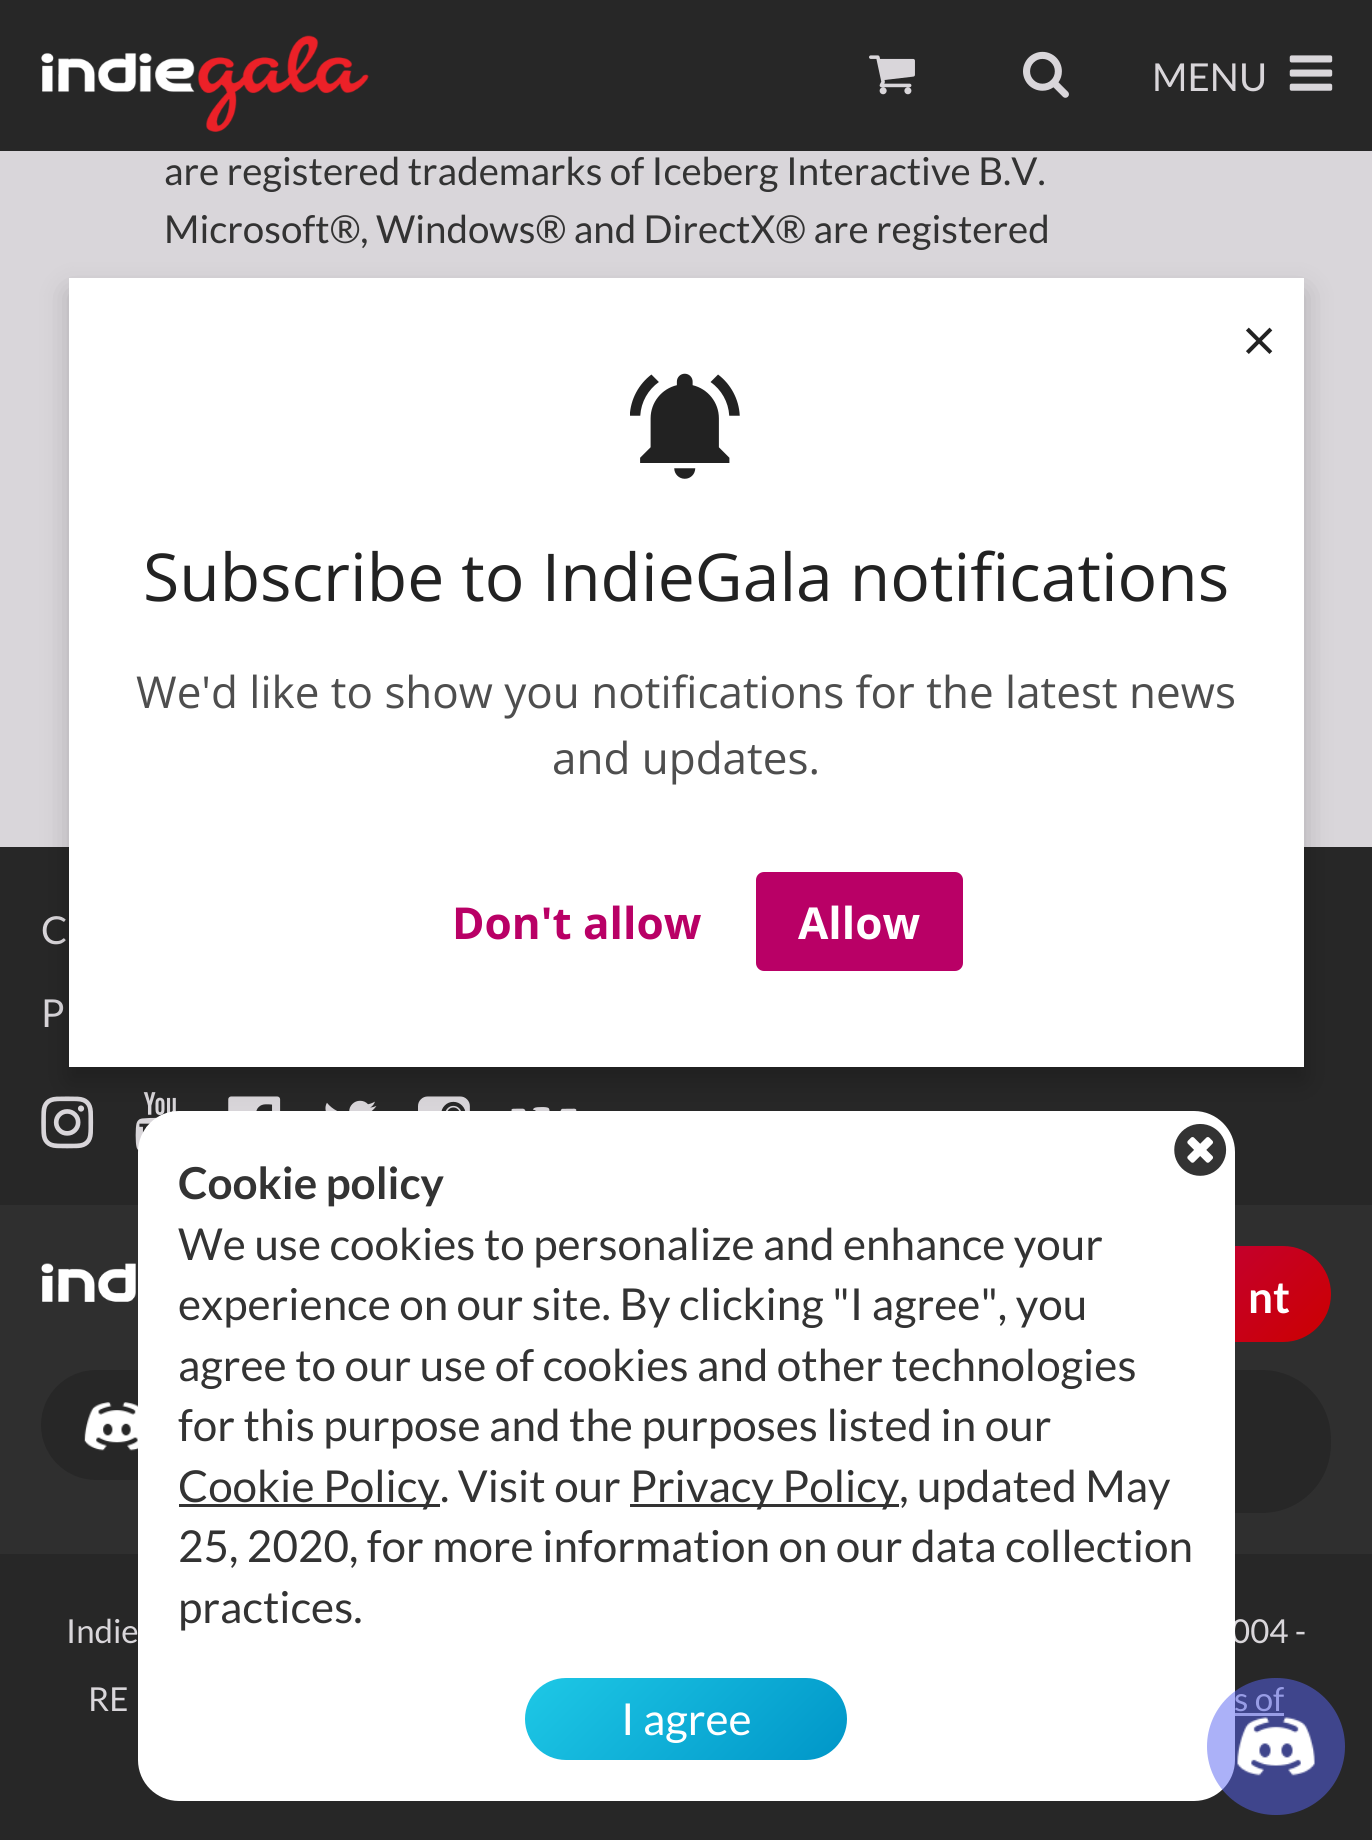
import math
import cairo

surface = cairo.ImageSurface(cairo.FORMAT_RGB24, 1372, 1840)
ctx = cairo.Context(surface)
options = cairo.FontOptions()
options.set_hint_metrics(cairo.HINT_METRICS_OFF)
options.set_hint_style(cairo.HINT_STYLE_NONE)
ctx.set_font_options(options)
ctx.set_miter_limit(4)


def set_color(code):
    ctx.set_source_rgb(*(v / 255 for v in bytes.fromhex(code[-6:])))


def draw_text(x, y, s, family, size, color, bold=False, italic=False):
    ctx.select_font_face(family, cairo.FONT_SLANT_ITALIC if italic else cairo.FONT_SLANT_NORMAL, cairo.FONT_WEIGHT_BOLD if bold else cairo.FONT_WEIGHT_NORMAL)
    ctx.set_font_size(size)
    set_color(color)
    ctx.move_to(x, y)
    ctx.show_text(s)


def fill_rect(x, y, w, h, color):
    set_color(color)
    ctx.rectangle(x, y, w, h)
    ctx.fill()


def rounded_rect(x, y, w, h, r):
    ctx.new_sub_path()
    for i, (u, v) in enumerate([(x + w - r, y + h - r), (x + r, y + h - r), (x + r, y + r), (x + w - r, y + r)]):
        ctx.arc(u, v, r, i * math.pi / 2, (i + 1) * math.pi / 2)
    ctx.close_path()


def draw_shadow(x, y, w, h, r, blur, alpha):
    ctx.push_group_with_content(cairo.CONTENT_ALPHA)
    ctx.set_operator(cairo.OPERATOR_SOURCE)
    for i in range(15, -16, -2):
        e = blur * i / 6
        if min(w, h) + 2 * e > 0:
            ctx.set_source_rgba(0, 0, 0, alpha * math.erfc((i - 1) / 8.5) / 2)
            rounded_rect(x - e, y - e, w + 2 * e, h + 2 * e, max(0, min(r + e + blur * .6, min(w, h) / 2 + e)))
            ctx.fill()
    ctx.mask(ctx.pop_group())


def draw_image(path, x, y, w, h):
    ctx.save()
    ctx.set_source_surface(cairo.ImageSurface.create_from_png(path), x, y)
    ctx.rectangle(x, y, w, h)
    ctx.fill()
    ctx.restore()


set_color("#d9d6da")
ctx.paint()
fill_rect(0, 0, 1372, 151, "#272727")
draw_image("assets/img1.png", 41, 35, 328, 97)
draw_image("assets/img2.png", 869, 55, 46, 40)
draw_image("assets/img3.png", 1023, 51, 46, 47)
draw_text(1152, 91, "MENU", "Lato", 38.5, "#d9d6da")
draw_image("assets/img4.png", 1289, 55, 44, 36)
draw_text(164, 185, "are registered trademarks of Iceberg Interactive B.V.", "Lato", 38.5, "#333333")
draw_text(164, 243, "Microsoft®, Windows® and DirectX® are registered", "Lato", 38.5, "#333333")
fill_rect(0, 847, 1372, 358, "#272727")
draw_text(41, 944, "C", "Lato", 38.5, "#d9d6da")
draw_text(41, 1027, "P", "Lato", 38.5, "#d9d6da")
draw_image("assets/img5.png", 41, 1096, 53, 53)
draw_image("assets/img6.png", 135, 1092, 41, 59)
draw_image("assets/img7.png", 228, 1096, 53, 15)
draw_image("assets/img8.png", 325, 1100, 52, 11)
draw_image("assets/img9.png", 418, 1096, 52, 15)
draw_image("assets/img10.png", 511, 1107, 66, 4)
fill_rect(0, 1205, 1372, 349, "#2f2f2f")
draw_image("assets/img11.png", 41, 1263, 95, 39)
set_color("#272727")
rounded_rect(41, 1370, 633, 110, 55)
ctx.fill()
draw_image("assets/img12.png", 84, 1402, 54, 49)
gradient = cairo.LinearGradient(930, 1144, 1229, 1444)
gradient.add_color_stop_rgba(0, 0.702, 0, 0.525, 1)
gradient.add_color_stop_rgba(1, 0.8, 0, 0, 1)
ctx.set_source(gradient)
ctx.new_path()
ctx.move_to(828, 1246)
ctx.line_to(1283, 1246)
ctx.curve_to(1309.5, 1246, 1331, 1267.5, 1331, 1294)
ctx.curve_to(1331, 1320.5, 1309.5, 1342, 1283, 1342)
ctx.line_to(828, 1342)
ctx.close_path()
ctx.fill()
draw_text(1248, 1313, "nt", "Lato", 44, "#ffffff", bold=True)
set_color("#272727")
rounded_rect(732, 1370, 599, 143, 69)
ctx.fill()
fill_rect(0, 1554, 1372, 286, "#272727")
draw_text(66, 1643, "Indie", "Lato", 33, "#d9d6da")
draw_text(1231, 1643, "004 -", "Lato", 33, "#d9d6da")
draw_text(88, 1711, "RE", "Lato", 33, "#d9d6da")
draw_text(1234, 1711, "s of", "Lato", 33, "#d9d6da")
fill_rect(1235, 1713, 49, 3, "#d9d6da")
set_color("#ffffff")
rounded_rect(138, 1111, 1097, 690, 41)
ctx.fill()
draw_image("assets/img13.png", 1174, 1124, 53, 52)
draw_text(178, 1199, "Cookie policy", "Lato", 44, "#333333", bold=True)
draw_text(178, 1260, "We use cookies to personalize and enhance your", "Lato", 44, "#333333")
draw_text(178, 1320, "experience on our site. By clicking \"I agree\", you", "Lato", 44, "#333333")
draw_text(178, 1381, "agree to our use of cookies and other technologies", "Lato", 44, "#333333")
draw_text(178, 1441, "for this purpose and the purposes listed in our", "Lato", 44, "#333333")
fill_rect(179, 1504, 261, 3, "#333333")
draw_text(178, 1502, "Cookie Policy. Visit our", "Lato", 44, "#333333")
fill_rect(630, 1504, 269, 3, "#333333")
draw_text(630, 1502, "Privacy Policy, updated May", "Lato", 44, "#333333")
draw_text(178, 1562, "25, 2020, for more information on our data collection", "Lato", 44, "#333333")
draw_text(178, 1623, "practices.", "Lato", 44, "#333333")
gradient = cairo.LinearGradient(585, 1618, 787, 1820)
gradient.add_color_stop_rgba(0, 0.118, 0.784, 0.902, 1)
gradient.add_color_stop_rgba(1, 0, 0.588, 0.784, 1)
ctx.set_source(gradient)
rounded_rect(525, 1678, 322, 82, 41)
ctx.fill()
draw_text(621, 1735, "I agree", "Lato", 44, "#ffffff")
ctx.set_source_rgba(0.345, 0.396, 0.949, 0.5)
rounded_rect(1207, 1678, 138, 137, 68.5)
ctx.fill()
draw_image("assets/img14.png", 1237, 1717, 78, 59)
set_color("#000000")
draw_shadow(69, 292, 1235, 789, 0, 14, 0.2)
fill_rect(69, 278, 1235, 789, "#ffffff")
draw_text(1242, 362, "×", "Open Sans", 60, "#222222")
draw_image("assets/img15.png", 630, 373, 110, 106)
draw_text(143, 601, "Subscribe to IndieGala notifications", "Open Sans", 66, "#222222")
draw_text(136, 708, "We'd like to show you notifications for the latest news", "Open Sans", 44, "#4e4e4e")
draw_text(552, 774, "and updates.", "Open Sans", 44, "#4e4e4e")
draw_text(452, 939, "Don't allow", "Open Sans", 44, "#b90066", bold=True)
rounded_rect(757.5, 873.5, 204, 96, 6.5)
ctx.fill_preserve()
ctx.set_line_width(3)
ctx.stroke()
draw_text(798, 939, "Allow", "Open Sans", 44, "#ffffff", bold=True)
surface.write_to_png("output.png")
